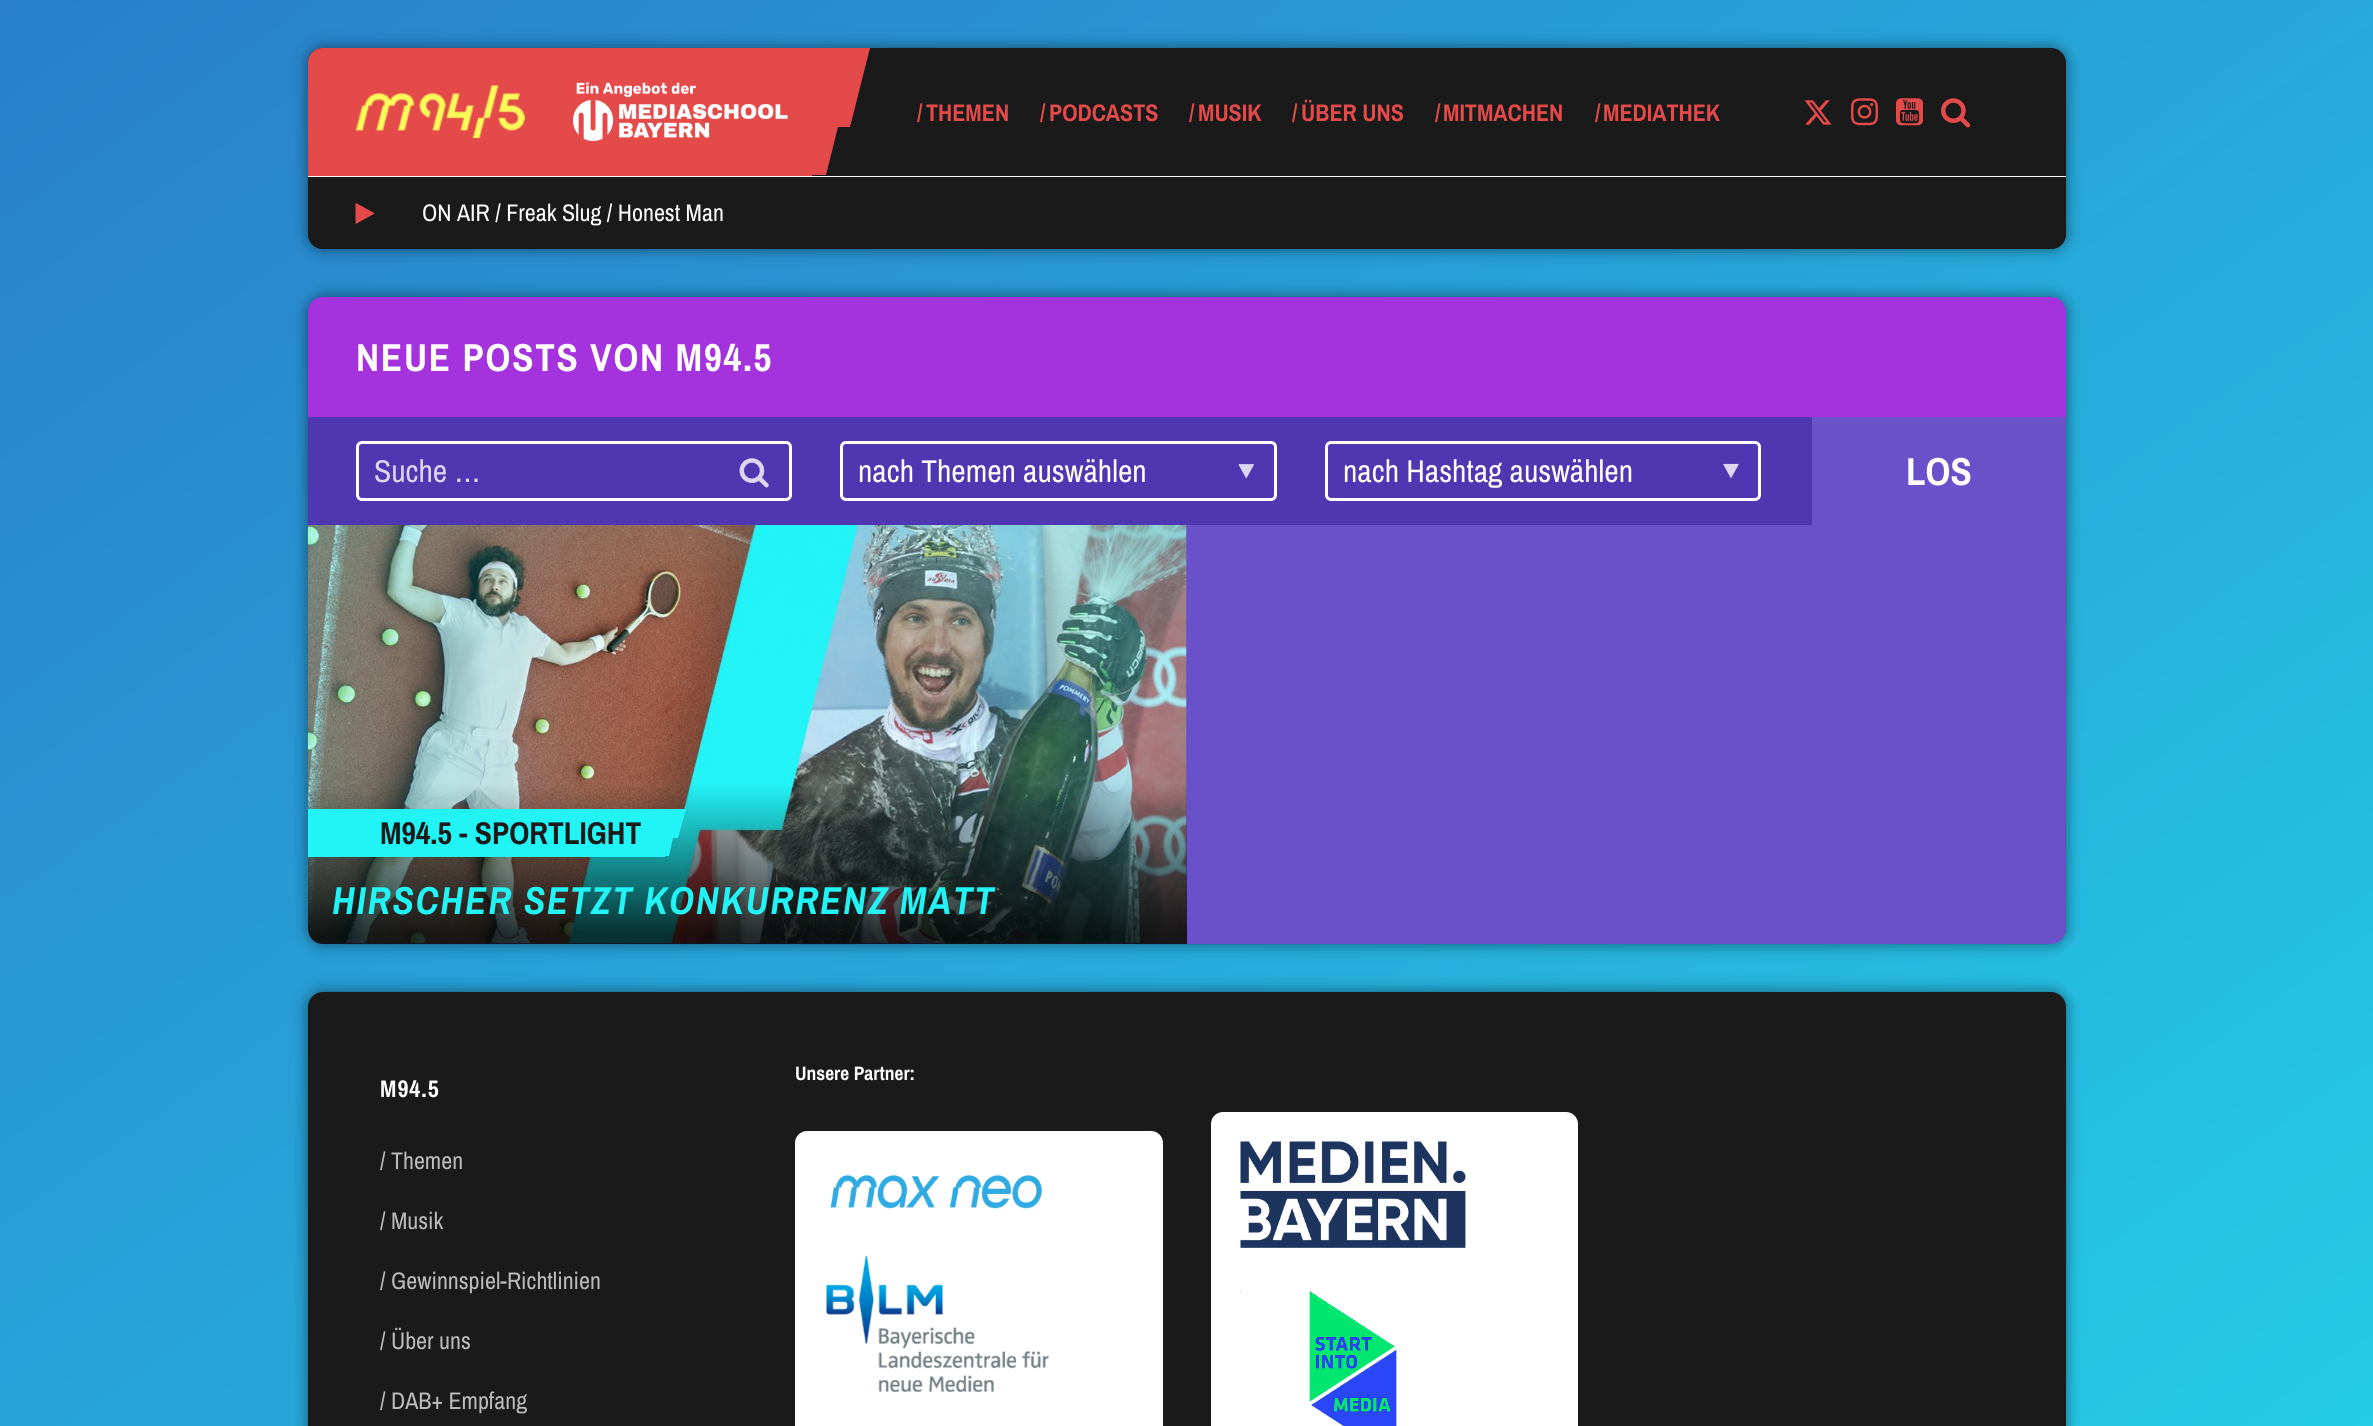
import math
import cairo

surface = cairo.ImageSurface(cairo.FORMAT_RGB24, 2373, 1426)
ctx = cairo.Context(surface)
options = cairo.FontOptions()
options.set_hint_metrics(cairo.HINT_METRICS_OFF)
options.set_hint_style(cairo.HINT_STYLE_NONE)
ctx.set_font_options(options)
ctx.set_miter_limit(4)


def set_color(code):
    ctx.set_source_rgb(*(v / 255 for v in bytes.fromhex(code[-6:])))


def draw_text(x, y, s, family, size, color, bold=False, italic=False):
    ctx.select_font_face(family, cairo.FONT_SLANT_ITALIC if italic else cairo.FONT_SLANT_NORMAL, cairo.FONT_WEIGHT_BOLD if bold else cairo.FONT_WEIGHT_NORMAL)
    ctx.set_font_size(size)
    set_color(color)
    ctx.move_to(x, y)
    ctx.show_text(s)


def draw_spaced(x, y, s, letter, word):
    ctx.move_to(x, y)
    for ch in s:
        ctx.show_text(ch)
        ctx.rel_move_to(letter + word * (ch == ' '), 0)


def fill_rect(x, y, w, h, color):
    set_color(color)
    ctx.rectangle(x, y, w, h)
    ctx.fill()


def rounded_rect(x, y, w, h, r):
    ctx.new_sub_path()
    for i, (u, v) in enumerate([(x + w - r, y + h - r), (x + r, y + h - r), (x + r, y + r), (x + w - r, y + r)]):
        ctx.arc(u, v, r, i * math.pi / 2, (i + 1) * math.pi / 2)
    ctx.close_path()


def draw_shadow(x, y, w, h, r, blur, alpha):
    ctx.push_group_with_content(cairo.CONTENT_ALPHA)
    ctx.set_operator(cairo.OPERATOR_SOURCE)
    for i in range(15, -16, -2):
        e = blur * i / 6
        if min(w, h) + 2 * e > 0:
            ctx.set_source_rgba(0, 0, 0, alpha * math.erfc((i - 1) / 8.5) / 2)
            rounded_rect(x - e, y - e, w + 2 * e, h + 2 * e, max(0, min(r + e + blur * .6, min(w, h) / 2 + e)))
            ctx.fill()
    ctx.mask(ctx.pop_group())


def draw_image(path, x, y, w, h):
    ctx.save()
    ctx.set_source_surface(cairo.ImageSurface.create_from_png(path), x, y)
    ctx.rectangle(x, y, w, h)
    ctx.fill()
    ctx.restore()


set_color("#ffffff")
ctx.paint()
gradient = cairo.LinearGradient(2292, 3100, 81, -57)
gradient.add_color_stop_rgba(0, 0.133, 0.957, 0.965, 1)
gradient.add_color_stop_rgba(1, 0.161, 0.498, 0.792, 1)
ctx.set_source(gradient)
ctx.rectangle(0, 0, 2373, 1426)
ctx.fill()
set_color("#000000")
draw_shadow(308, 48, 1758, 201, 15, 7.5, 0.5)
set_color("#1a1a1a")
rounded_rect(308, 48, 1758, 201, 15)
ctx.fill()
fill_rect(308, 176, 1758, 1, "#fafafa")
set_color("#e44a4a")
ctx.new_path()
ctx.move_to(323, 48)
ctx.line_to(549, 48)
ctx.line_to(549, 176)
ctx.line_to(308, 176)
ctx.line_to(308, 63)
ctx.curve_to(308, 54.5, 314.5, 48, 323, 48)
ctx.close_path()
ctx.fill()
draw_image("assets/img1.png", 355, 85, 170, 53)
fill_rect(549, 48, 263, 128, "#e44a4a")
draw_image("assets/img2.png", 573, 82, 215, 59)
ctx.set_fill_rule(cairo.FILL_RULE_EVEN_ODD)
ctx.new_path()
ctx.move_to(856, 48)
ctx.line_to(870, 48)
ctx.line_to(850, 127)
ctx.line_to(838, 127)
ctx.line_to(826, 175)
ctx.line_to(810, 175)
ctx.line_to(810, 48)
ctx.close_path()
ctx.fill()
draw_text(917, 121, "/", "Archivo Narrow", 24, "#e44a4a", bold=True)
draw_text(926, 121, "THEMEN", "Archivo Narrow", 24, "#e44a4a", bold=True)
draw_text(1040, 121, "/", "Archivo Narrow", 24, "#e44a4a", bold=True)
draw_text(1049, 121, "PODCASTS", "Archivo Narrow", 24, "#e44a4a", bold=True)
draw_text(1189, 121, "/", "Archivo Narrow", 24, "#e44a4a", bold=True)
draw_text(1198, 121, "MUSIK", "Archivo Narrow", 24, "#e44a4a", bold=True)
draw_text(1292, 121, "/", "Archivo Narrow", 24, "#e44a4a", bold=True)
draw_text(1301, 121, "ÜBER UNS", "Archivo Narrow", 24, "#e44a4a", bold=True)
draw_text(1435, 121, "/", "Archivo Narrow", 24, "#e44a4a", bold=True)
draw_text(1443, 121, "MITMACHEN", "Archivo Narrow", 24, "#e44a4a", bold=True)
draw_text(1595, 121, "/", "Archivo Narrow", 24, "#e44a4a", bold=True)
draw_text(1603, 121, "MEDIATHEK", "Archivo Narrow", 24, "#e44a4a", bold=True)
draw_image("assets/img3.png", 1804, 100, 28, 25)
draw_image("assets/img4.png", 1851, 98, 27, 28)
draw_image("assets/img5.png", 1896, 98, 27, 28)
draw_image("assets/img6.png", 1941, 98, 30, 30)
set_color("#1a1a1a")
ctx.new_path()
ctx.move_to(308, 177)
ctx.line_to(2066, 177)
ctx.line_to(2066, 234)
ctx.curve_to(2066, 242.5, 2059.5, 249, 2051, 249)
ctx.line_to(323, 249)
ctx.curve_to(314.5, 249, 308, 242.5, 308, 234)
ctx.close_path()
ctx.fill()
draw_image("assets/img7.png", 355, 203, 20, 21)
draw_text(422, 221, "ON AIR / Freak Slug / Honest Man", "Archivo Narrow", 24, "#ffffff")
set_color("#000000")
draw_shadow(308, 297, 1758, 647, 15, 7.5, 0.5)
set_color("#a433de")
ctx.new_path()
ctx.move_to(323, 297)
ctx.line_to(2051, 297)
ctx.curve_to(2059.5, 297, 2066, 303.5, 2066, 312)
ctx.line_to(2066, 417)
ctx.line_to(308, 417)
ctx.line_to(308, 312)
ctx.curve_to(308, 303.5, 314.5, 297, 323, 297)
ctx.close_path()
ctx.fill()
ctx.select_font_face("Archivo Narrow", cairo.FONT_SLANT_NORMAL, cairo.FONT_WEIGHT_BOLD)
ctx.set_font_size(39)
set_color("#ffffff")
draw_spaced(356, 371, "NEUE POSTS VON M94.5", 1.75, 0)
fill_rect(308, 417, 1504, 108, "#4e37b0")
rounded_rect(357.5, 442.5, 433, 57, 4.5)
set_color("#ffffff")
ctx.set_line_width(3)
ctx.stroke()
draw_text(374, 482, "Suche …", "Archivo Narrow", 31.5, "#dcd7ef")
draw_image("assets/img8.png", 739, 458, 30, 30)
rounded_rect(841.5, 442.5, 434, 57, 4.5)
set_color("#ffffff")
ctx.stroke()
draw_text(858, 482, "nach Themen auswählen", "Archivo Narrow", 31.5, "#ffffff")
draw_image("assets/img9.png", 1238, 464, 16, 15)
rounded_rect(1326.5, 442.5, 433, 57, 4.5)
ctx.stroke()
draw_text(1343, 482, "nach Hashtag auswählen", "Archivo Narrow", 31.5, "#ffffff")
draw_image("assets/img10.png", 1723, 463, 16, 15)
fill_rect(1812, 417, 254, 108, "#6851c9")
draw_text(1906, 485, "LOS", "Archivo Narrow", 39, "#ffffff", bold=True)
set_color("#6851c9")
ctx.new_path()
ctx.move_to(308, 525)
ctx.line_to(2066, 525)
ctx.line_to(2066, 929)
ctx.curve_to(2066, 937.5, 2059.5, 944, 2051, 944)
ctx.line_to(323, 944)
ctx.curve_to(314.5, 944, 308, 937.5, 308, 929)
ctx.close_path()
ctx.fill()
draw_image("assets/img11.png", 307, 525, 880, 419)
gradient = cairo.LinearGradient(747, 783, 747, 951)
gradient.add_color_stop_rgba(0, 0, 0, 0, 0)
gradient.add_color_stop_rgba(0.9, 0, 0, 0, 0.8)
ctx.set_source(gradient)
ctx.new_path()
ctx.move_to(308, 783)
ctx.line_to(1187, 783)
ctx.line_to(1187, 944)
ctx.line_to(323, 944)
ctx.curve_to(314.5, 944, 308, 937.5, 308, 929)
ctx.close_path()
ctx.fill()
fill_rect(308, 809, 357, 48, "#22f4f6")
draw_text(380, 844, "M94.5 - SPORTLIGHT", "Archivo Narrow", 31.5, "#1a1a1a", bold=True)
set_color("#22f4f6")
ctx.new_path()
ctx.move_to(680, 809)
ctx.line_to(686, 809)
ctx.line_to(678, 838)
ctx.line_to(673, 838)
ctx.line_to(669, 856)
ctx.line_to(663, 856)
ctx.line_to(663, 809)
ctx.close_path()
ctx.fill()
ctx.select_font_face("Archivo Narrow", cairo.FONT_SLANT_ITALIC, cairo.FONT_WEIGHT_BOLD)
ctx.set_font_size(39)
draw_spaced(332, 914, "HIRSCHER SETZT KONKURRENZ MATT", 1.75, 0)
set_color("#000000")
draw_shadow(308, 992, 1758, 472, 15, 7.5, 0.5)
set_color("#1a1a1a")
rounded_rect(308, 992, 1758, 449, 15)
ctx.fill()
draw_text(795, 1080, "Unsere Partner:", "Archivo Narrow", 19.5, "#ffffff", bold=True)
rounded_rect(795, 1131, 368, 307, 12)
ctx.fill()
draw_image("assets/img12.png", 830, 1175, 212, 34)
draw_image("assets/img13.png", 826, 1255, 223, 137)
ctx.set_font_size(24)
draw_spaced(380, 1097, "M94.5", 1, 0)
draw_text(380, 1169, "/ Themen", "Archivo Narrow", 24, "#bbbbbb")
draw_text(380, 1229, "/ Musik", "Archivo Narrow", 24, "#bbbbbb")
draw_text(380, 1289, "/ Gewinnspiel-Richtlinien", "Archivo Narrow", 24, "#bbbbbb")
draw_text(380, 1349, "/ Über uns", "Archivo Narrow", 24, "#bbbbbb")
draw_text(380, 1409, "/ DAB+ Empfang", "Archivo Narrow", 24, "#bbbbbb")
set_color("#ffffff")
rounded_rect(1211, 1112, 367, 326, 12)
ctx.fill()
draw_image("assets/img14.png", 1240, 1141, 226, 107)
draw_image("assets/img15.png", 1240, 1291, 157, 135)
surface.write_to_png("output.png")
